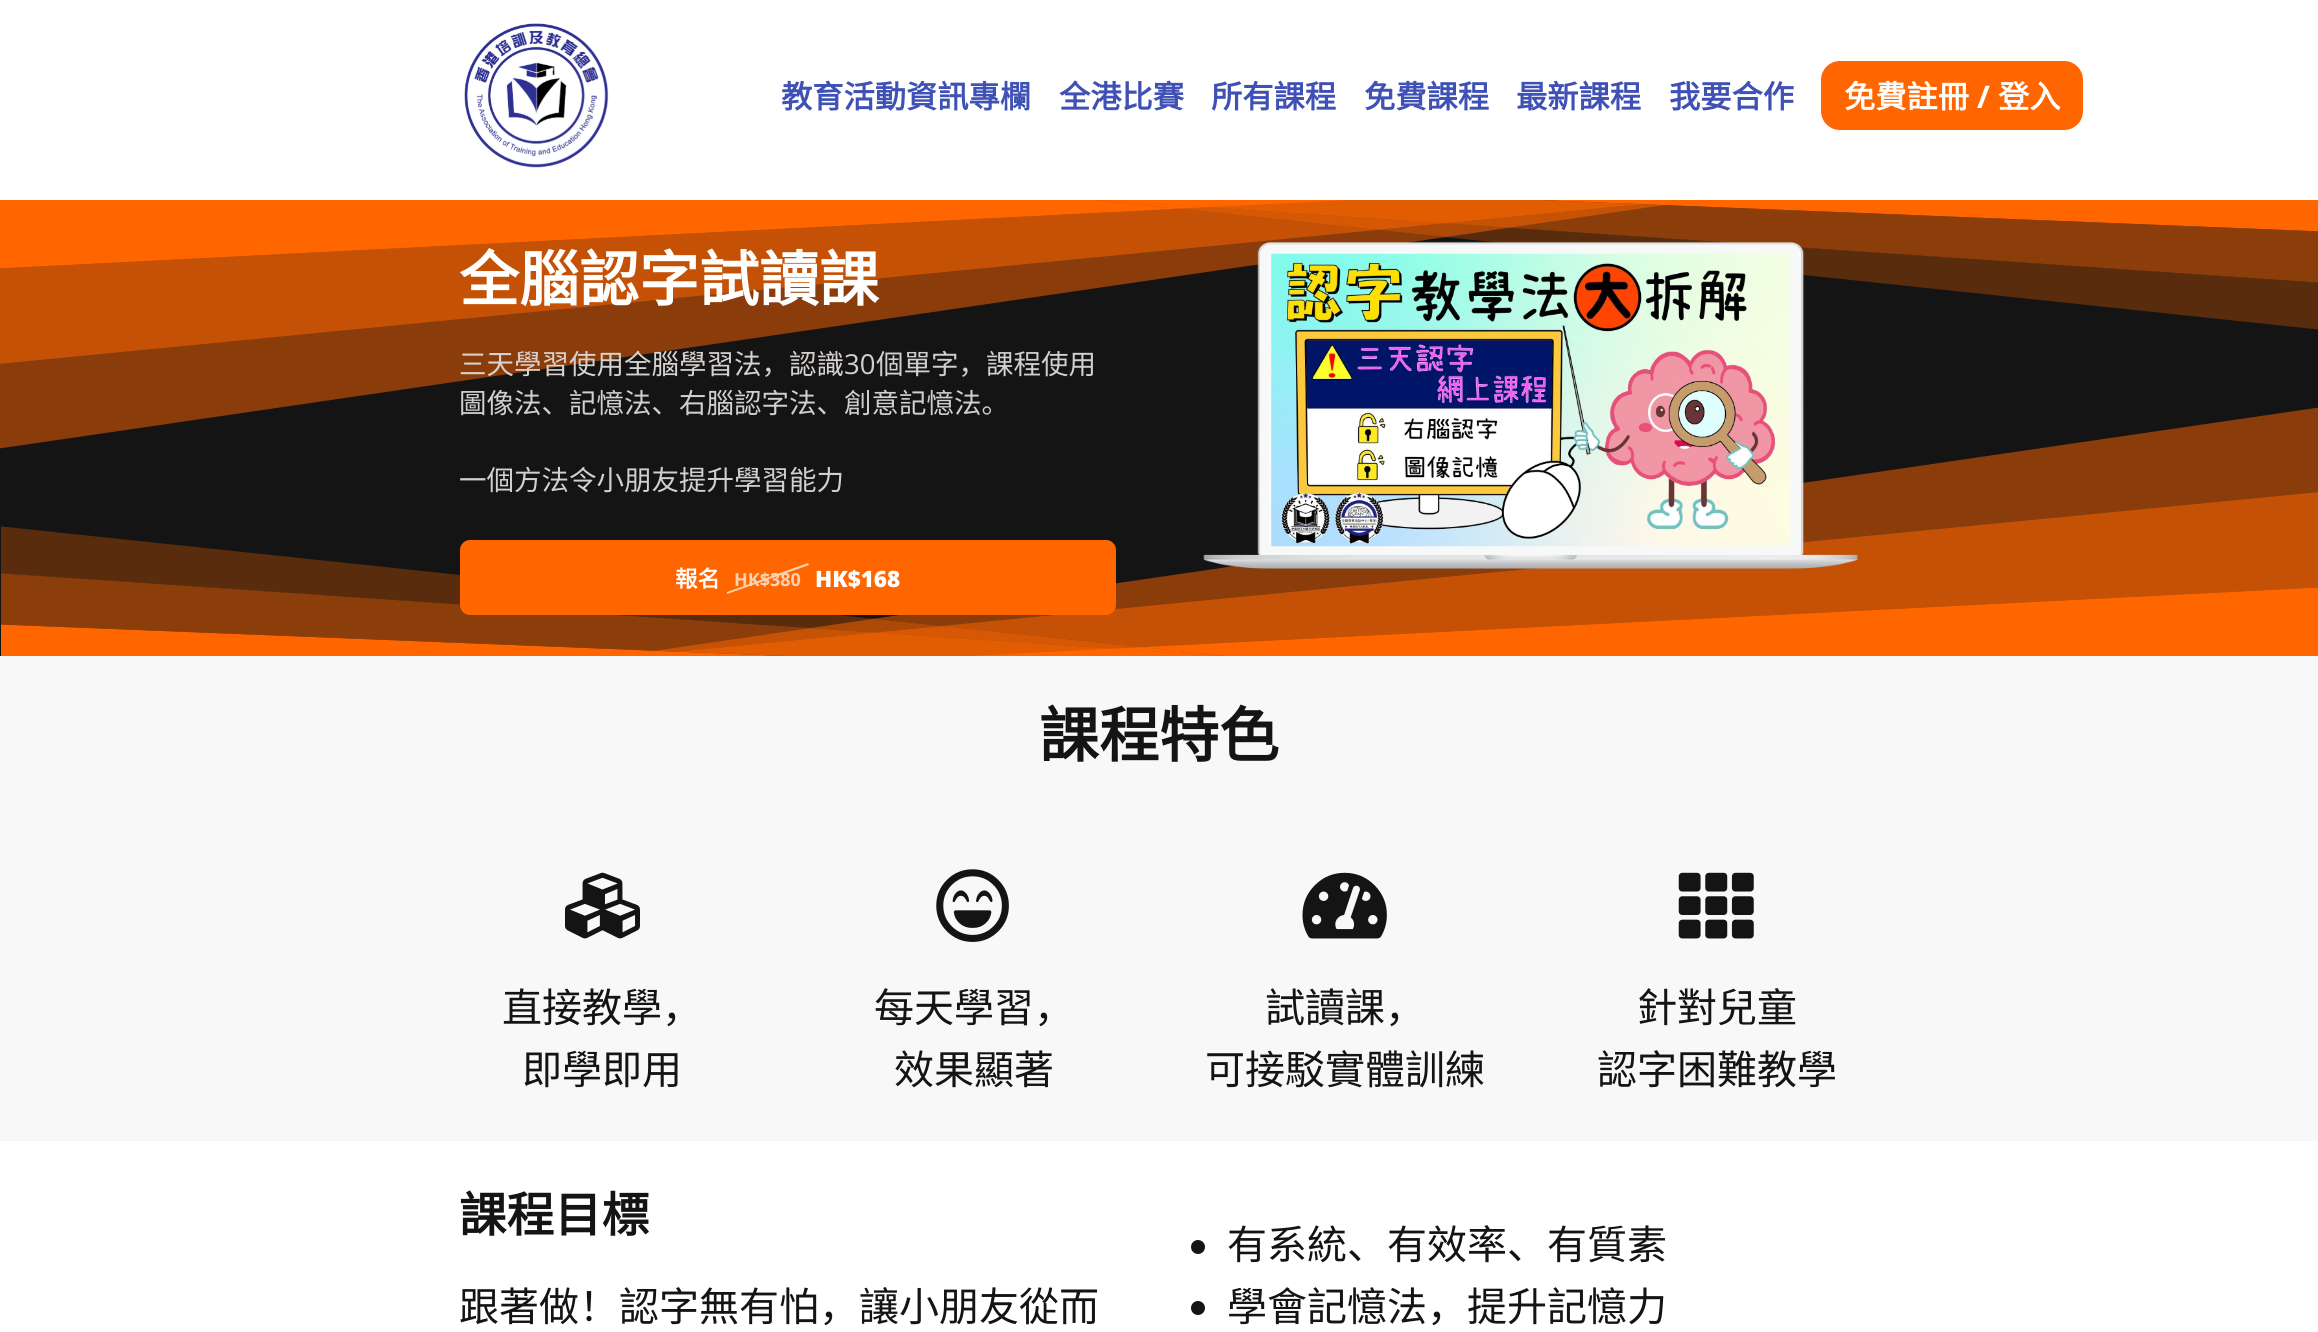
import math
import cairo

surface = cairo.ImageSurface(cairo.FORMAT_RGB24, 2318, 1332)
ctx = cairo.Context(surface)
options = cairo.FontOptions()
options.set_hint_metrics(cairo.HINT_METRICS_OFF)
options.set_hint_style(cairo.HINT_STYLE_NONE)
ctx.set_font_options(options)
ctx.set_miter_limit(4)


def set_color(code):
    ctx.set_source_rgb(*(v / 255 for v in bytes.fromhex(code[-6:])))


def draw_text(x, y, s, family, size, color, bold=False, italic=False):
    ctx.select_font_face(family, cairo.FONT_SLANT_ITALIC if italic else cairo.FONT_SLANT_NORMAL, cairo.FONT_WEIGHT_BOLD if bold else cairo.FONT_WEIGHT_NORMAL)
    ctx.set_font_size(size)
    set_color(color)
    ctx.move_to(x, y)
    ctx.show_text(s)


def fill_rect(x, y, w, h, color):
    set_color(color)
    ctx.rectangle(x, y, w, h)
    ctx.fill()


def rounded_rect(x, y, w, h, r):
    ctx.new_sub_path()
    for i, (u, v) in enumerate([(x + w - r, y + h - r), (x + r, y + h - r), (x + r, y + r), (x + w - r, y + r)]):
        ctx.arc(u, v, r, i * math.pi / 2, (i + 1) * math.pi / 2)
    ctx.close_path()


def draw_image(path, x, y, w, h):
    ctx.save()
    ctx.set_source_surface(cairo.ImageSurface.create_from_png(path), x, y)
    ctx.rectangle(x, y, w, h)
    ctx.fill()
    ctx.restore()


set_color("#ffffff")
ctx.paint()
draw_image("assets/img1.png", 464, 23, 145, 145)
draw_text(781, 108, "教育活動資訊專欄", "Noto Sans CJK SC", 31.25, "#3f51b5", bold=True)
draw_text(1059, 108, "全港比賽", "Noto Sans CJK SC", 31.25, "#3f51b5", bold=True)
draw_text(1211, 108, "所有課程", "Noto Sans CJK SC", 31.25, "#3f51b5", bold=True)
draw_text(1364, 108, "免費課程", "Noto Sans CJK SC", 31.25, "#3f51b5", bold=True)
draw_text(1516, 108, "最新課程", "Noto Sans CJK SC", 31.25, "#3f51b5", bold=True)
draw_text(1669, 108, "我要合作", "Noto Sans CJK SC", 31.25, "#3f51b5", bold=True)
set_color("#ff6600")
rounded_rect(1821, 61, 262, 69, 19)
ctx.fill()
draw_text(1844, 108, "免費註冊", "Noto Sans CJK SC", 31.25, "#ffffff", bold=True)
draw_text(1977, 108, "/", "Open Sans", 31.25, "#ffffff", bold=True)
draw_text(1998, 108, "登入", "Noto Sans CJK SC", 31.25, "#ffffff", bold=True)
fill_rect(0, 200, 2318, 456, "#141414")
draw_image("assets/img2.png", 0, 200, 2318, 249)
draw_text(459, 301, "全腦認字試讀課", "Noto Sans CJK SC", 60, "#ffffff", bold=True)
draw_text(459, 374, "三天學習使用全腦學習法，認識", "Noto Sans CJK SC", 27.5, "#d7d2cf")
draw_text(844, 374, "30", "Open Sans", 27.5, "#d0d0d0")
draw_text(876, 374, "個單字，課程使用", "Noto Sans CJK SC", 27.5, "#d0d0d0")
draw_image("assets/img5.png", 1, 407, 2317, 249)
draw_text(459, 413, "圖像法、記憶法、右腦認字法、創意記憶法。", "Noto Sans CJK SC", 27.5, "#d0d0d0")
draw_text(459, 490, "一個方法令小朋友提升學習能力", "Noto Sans CJK SC", 27.5, "#d0d0d0")
set_color("#ff6600")
rounded_rect(460, 540, 656, 75, 10)
ctx.fill()
draw_text(675, 587, "報名", "Noto Sans CJK SC", 22.5, "#ffffff", bold=True)
set_color("#ffd1b3")
ctx.new_path()
ctx.move_to(727, 592)
ctx.line_to(808, 563)
ctx.line_to(809, 565)
ctx.line_to(727, 594)
ctx.close_path()
ctx.fill()
draw_text(734, 586, "HK$380", "Open Sans", 18, "#ffd1b3", bold=True)
draw_text(815, 587, "HK$168", "Open Sans ExtraBold", 22.5, "#ffffff")
draw_image("assets/img3.png", 1203, 241, 655, 328)
draw_image("assets/img4.png", 1271, 253, 519, 294)
fill_rect(0, 656, 2318, 485, "#f8f8f8")
draw_text(1039, 757, "課程特色", "Noto Sans CJK SC", 60, "#141414", bold=True)
draw_image("assets/img6.png", 565, 872, 75, 67)
draw_text(502, 1022, "直接教學，", "Noto Sans CJK SC", 40, "#141414")
draw_text(522, 1084, "即學即用", "Noto Sans CJK SC", 40, "#141414")
draw_image("assets/img7.png", 936, 869, 73, 73)
draw_text(874, 1022, "每天學習，", "Noto Sans CJK SC", 40, "#141414")
draw_text(894, 1084, "效果顯著", "Noto Sans CJK SC", 40, "#141414")
draw_image("assets/img8.png", 1302, 872, 85, 67)
draw_text(1265, 1022, "試讀課，", "Noto Sans CJK SC", 40, "#141414")
draw_text(1205, 1084, "可接駁實體訓練", "Noto Sans CJK SC", 40, "#141414")
draw_image("assets/img9.png", 1678, 872, 76, 67)
draw_text(1637, 1022, "針對兒童", "Noto Sans CJK SC", 40, "#141414")
draw_text(1597, 1084, "認字困難教學", "Noto Sans CJK SC", 40, "#141414")
draw_text(459, 1232, "課程目標", "Noto Sans CJK SC", 47.5, "#141414", bold=True)
draw_text(459, 1321, "跟著做！認字無有怕，讓小朋友從而", "Noto Sans CJK SC", 40, "#141414")
ctx.new_path()
ctx.arc(1198, 1247, 7, 0, 2 * math.pi)
ctx.fill()
draw_text(1227, 1259, "有系統、有效率、有質素", "Noto Sans CJK SC", 40, "#141414")
ctx.new_path()
ctx.arc(1198, 1308, 7, 0, 2 * math.pi)
ctx.fill()
draw_text(1227, 1321, "學會記憶法，提升記憶力", "Noto Sans CJK SC", 40, "#141414")
surface.write_to_png("output.png")
